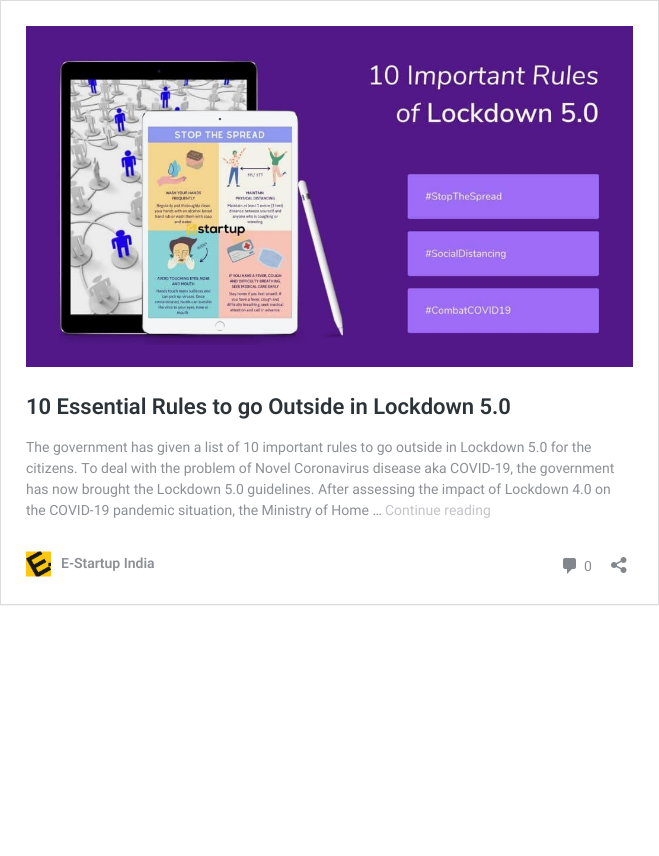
import math
import cairo

surface = cairo.ImageSurface(cairo.FORMAT_RGB24, 659, 856)
ctx = cairo.Context(surface)
options = cairo.FontOptions()
options.set_hint_metrics(cairo.HINT_METRICS_OFF)
options.set_hint_style(cairo.HINT_STYLE_NONE)
ctx.set_font_options(options)
ctx.set_miter_limit(4)


def set_color(code):
    ctx.set_source_rgb(*(v / 255 for v in bytes.fromhex(code[-6:])))


def draw_text(x, y, s, family, size, color, bold=False, italic=False):
    ctx.select_font_face(family, cairo.FONT_SLANT_ITALIC if italic else cairo.FONT_SLANT_NORMAL, cairo.FONT_WEIGHT_BOLD if bold else cairo.FONT_WEIGHT_NORMAL)
    ctx.set_font_size(size)
    set_color(color)
    ctx.move_to(x, y)
    ctx.show_text(s)


def rounded_rect(x, y, w, h, r):
    ctx.new_sub_path()
    for i, (u, v) in enumerate([(x + w - r, y + h - r), (x + r, y + h - r), (x + r, y + r), (x + w - r, y + r)]):
        ctx.arc(u, v, r, i * math.pi / 2, (i + 1) * math.pi / 2)
    ctx.close_path()


def draw_shadow(x, y, w, h, r, blur, alpha):
    ctx.push_group_with_content(cairo.CONTENT_ALPHA)
    ctx.set_operator(cairo.OPERATOR_SOURCE)
    for i in range(15, -16, -2):
        e = blur * i / 6
        if min(w, h) + 2 * e > 0:
            ctx.set_source_rgba(0, 0, 0, alpha * math.erfc((i - 1) / 8.5) / 2)
            rounded_rect(x - e, y - e, w + 2 * e, h + 2 * e, max(0, min(r + e + blur * .6, min(w, h) / 2 + e)))
            ctx.fill()
    ctx.mask(ctx.pop_group())


def draw_image(path, x, y, w, h):
    ctx.save()
    ctx.set_source_surface(cairo.ImageSurface.create_from_png(path), x, y)
    ctx.rectangle(x, y, w, h)
    ctx.fill()
    ctx.restore()


set_color("#ffffff")
ctx.paint()
ctx.save()
ctx.rectangle(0, 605, 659, 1)
ctx.clip()
set_color("#000000")
draw_shadow(0, 1, 659, 605, 0, 0.5, 0.05)
ctx.restore()
ctx.rectangle(0.5, 0.5, 658, 604)
set_color("#dcdcde")
ctx.set_line_width(1)
ctx.stroke()
draw_image("assets/img1.png", 26, 26, 607, 341)
draw_text(26, 414, "10 Essential Rules to go Outside in Lockdown 5.0", "Roboto SemiBold", 22, "#2c3338")
draw_text(26, 452, "The government has given a list of 10 important rules to go outside in Lockdown 5.0 for the", "Roboto", 14, "#8c8f94")
draw_text(26, 473, "citizens. To deal with the problem of Novel Coronavirus disease aka COVID-19, the government", "Roboto", 14, "#8c8f94")
draw_text(26, 494, "has now brought the Lockdown 5.0 guidelines. After assessing the impact of Lockdown 4.0 on", "Roboto", 14, "#8c8f94")
draw_text(26, 515, "the COVID-19 pandemic situation, the Ministry of Home …", "Roboto", 14, "#8c8f94")
draw_text(385, 515, "Continue reading", "Roboto", 14, "#c3c4c7")
draw_image("assets/img2.png", 26, 551, 25, 26)
draw_text(61, 568, "E-Startup India", "Roboto SemiBold", 14, "#8c8f94")
draw_image("assets/img3.png", 563, 558, 13, 16)
draw_text(584, 571, "0", "Roboto", 14, "#8c8f94")
draw_image("assets/img4.png", 611, 557, 16, 16)
surface.write_to_png("output.png")
